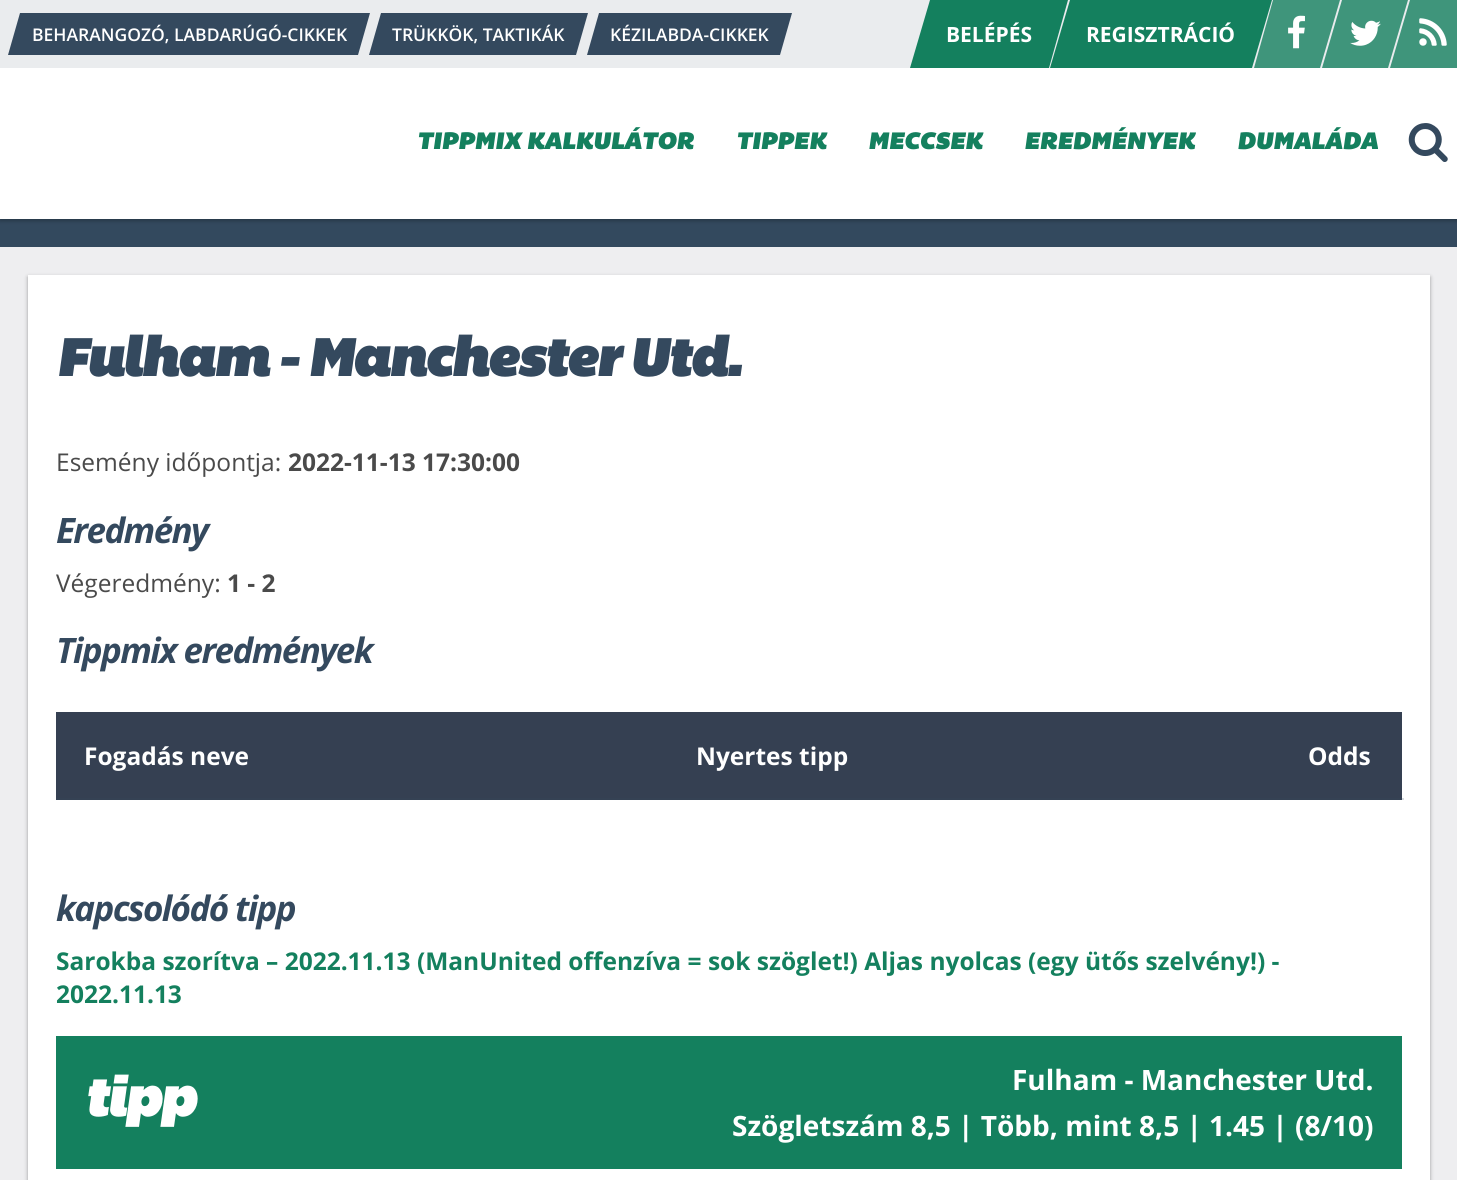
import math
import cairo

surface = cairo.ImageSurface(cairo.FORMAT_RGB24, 1457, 1180)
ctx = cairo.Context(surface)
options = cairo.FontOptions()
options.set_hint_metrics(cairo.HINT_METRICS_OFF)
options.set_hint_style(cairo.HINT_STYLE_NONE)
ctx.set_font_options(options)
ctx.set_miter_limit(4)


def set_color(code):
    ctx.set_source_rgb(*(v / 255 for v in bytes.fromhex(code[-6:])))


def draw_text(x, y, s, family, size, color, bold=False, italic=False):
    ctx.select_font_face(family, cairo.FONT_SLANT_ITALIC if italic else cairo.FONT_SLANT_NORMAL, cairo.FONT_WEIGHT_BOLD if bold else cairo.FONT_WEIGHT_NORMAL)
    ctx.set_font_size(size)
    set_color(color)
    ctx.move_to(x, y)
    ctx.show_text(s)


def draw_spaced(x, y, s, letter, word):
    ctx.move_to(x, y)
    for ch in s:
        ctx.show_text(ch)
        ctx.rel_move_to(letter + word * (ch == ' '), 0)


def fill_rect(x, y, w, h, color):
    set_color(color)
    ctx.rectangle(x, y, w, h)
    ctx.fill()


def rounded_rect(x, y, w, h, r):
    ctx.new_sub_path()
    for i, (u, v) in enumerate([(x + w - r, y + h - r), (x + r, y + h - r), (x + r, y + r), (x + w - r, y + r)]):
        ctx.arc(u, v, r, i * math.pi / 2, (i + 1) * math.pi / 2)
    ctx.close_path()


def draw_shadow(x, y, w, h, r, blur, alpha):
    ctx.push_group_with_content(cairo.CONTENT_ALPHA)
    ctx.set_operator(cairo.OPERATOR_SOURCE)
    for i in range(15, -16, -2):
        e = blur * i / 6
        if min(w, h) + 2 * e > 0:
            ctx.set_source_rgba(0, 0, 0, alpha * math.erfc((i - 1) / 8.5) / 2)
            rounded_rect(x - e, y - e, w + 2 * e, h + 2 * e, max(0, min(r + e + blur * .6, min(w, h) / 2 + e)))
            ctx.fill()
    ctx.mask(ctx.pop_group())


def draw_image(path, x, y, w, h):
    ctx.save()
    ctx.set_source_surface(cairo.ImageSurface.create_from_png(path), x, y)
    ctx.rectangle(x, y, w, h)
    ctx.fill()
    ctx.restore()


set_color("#33495e")
ctx.paint()
set_color("#000000")
draw_shadow(0, 2, 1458, 219, 0, 2, 0.25)
fill_rect(0, 68, 1457, 151, "#ffffff")
fill_rect(0, 0, 1410, 68, "#eaecee")
set_color("#34495e")
ctx.new_path()
ctx.move_to(20, 13)
ctx.line_to(370, 13)
ctx.line_to(358, 55)
ctx.line_to(8, 55)
ctx.close_path()
ctx.fill()
draw_text(32, 41, "BEHARANGOZÓ, LABDARÚGÓ-CIKKEK", "Open Sans SemiBold", 17.5, "#ffffff")
set_color("#34495e")
ctx.new_path()
ctx.move_to(381, 13)
ctx.line_to(588, 13)
ctx.line_to(576, 55)
ctx.line_to(369, 55)
ctx.close_path()
ctx.fill()
draw_text(392, 41, "TRÜKKÖK, TAKTIKÁK", "Open Sans SemiBold", 17.5, "#ffffff")
set_color("#34495e")
ctx.new_path()
ctx.move_to(599, 13)
ctx.line_to(792, 13)
ctx.line_to(780, 55)
ctx.line_to(587, 55)
ctx.close_path()
ctx.fill()
draw_text(610, 41, "KÉZILABDA-CIKKEK", "Open Sans SemiBold", 17.5, "#ffffff")
set_color("#14805e")
ctx.new_path()
ctx.move_to(930, 0)
ctx.line_to(1068, 0)
ctx.line_to(1049, 68)
ctx.line_to(910, 68)
ctx.close_path()
ctx.fill()
draw_text(946, 42, "BELÉPÉS", "Open Sans", 21, "#ffffff", bold=True)
set_color("#14805e")
ctx.new_path()
ctx.move_to(1070, 0)
ctx.line_to(1272, 0)
ctx.line_to(1252, 68)
ctx.line_to(1050, 68)
ctx.close_path()
ctx.fill()
draw_text(1086, 42, "REGISZTRÁCIÓ", "Open Sans", 21, "#ffffff", bold=True)
set_color("#3f957b")
ctx.new_path()
ctx.move_to(1273, 0)
ctx.line_to(1340, 0)
ctx.line_to(1320, 68)
ctx.line_to(1254, 68)
ctx.close_path()
ctx.fill()
draw_image("assets/img1.png", 1288, 15, 17, 34)
ctx.new_path()
ctx.move_to(1342, 0)
ctx.line_to(1408, 0)
ctx.line_to(1388, 68)
ctx.line_to(1322, 68)
ctx.close_path()
ctx.fill()
draw_image("assets/img2.png", 1350, 20, 31, 26)
ctx.new_path()
ctx.move_to(1410, 0)
ctx.line_to(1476, 0)
ctx.line_to(1457, 68)
ctx.line_to(1390, 68)
ctx.close_path()
ctx.fill()
draw_image("assets/img3.png", 1419, 18, 28, 28)
draw_text(417, 149, "TIPPMIX KALKULÁTOR", "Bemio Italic", 24.5, "#14805e")
draw_text(736, 149, "TIPPEK", "Bemio Italic", 24.5, "#14805e")
draw_text(868, 149, "MECCSEK", "Bemio Italic", 24.5, "#14805e")
draw_text(1024, 149, "EREDMÉNYEK", "Bemio Italic", 24.5, "#14805e")
draw_text(1237, 149, "DUMALÁDA", "Bemio Italic", 24.5, "#14805e")
draw_image("assets/img4.png", 1408, 123, 40, 39)
fill_rect(0, 247, 1457, 933, "#eeeef0")
set_color("#000000")
draw_shadow(28, 277, 1402, 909, 0, 2, 0.35)
fill_rect(28, 275, 1402, 905, "#ffffff")
fill_rect(1402, 798, 2, 2, "#d6dbdf")
ctx.set_font_size(56)
set_color("#34495e")
draw_spaced(56, 376, "Fulham - Manchester Utd.", -2.5, 0)
draw_text(56, 471, "Esemény időpontja:", "Open Sans", 24.5, "#4a4a4a")
draw_text(288, 471, "2022-11-13 17:30:00", "Open Sans", 24.5, "#4a4a4a", bold=True)
ctx.select_font_face("Open Sans", cairo.FONT_SLANT_ITALIC, cairo.FONT_WEIGHT_BOLD)
ctx.set_font_size(35)
set_color("#34495e")
draw_spaced(56, 543, "Eredmény", -1.6, 0)
draw_text(56, 592, "Végeredmény:", "Open Sans", 24.5, "#4a4a4a")
draw_text(227, 592, "1 - 2", "Open Sans", 24.5, "#4a4a4a", bold=True)
ctx.select_font_face("Open Sans", cairo.FONT_SLANT_ITALIC, cairo.FONT_WEIGHT_BOLD)
ctx.set_font_size(35)
set_color("#34495e")
draw_spaced(56, 663, "Tippmix eredmények", -1.6, 0)
fill_rect(56, 712, 1346, 86, "#354052")
draw_text(84, 765, "Fogadás neve", "Open Sans", 24.5, "#ffffff", bold=True)
draw_text(696, 765, "Nyertes tipp", "Open Sans", 24.5, "#ffffff", bold=True)
fill_rect(56, 798, 1346, 2, "#354254")
draw_text(1308, 765, "Odds", "Open Sans", 24.5, "#ffffff", bold=True)
ctx.select_font_face("Open Sans", cairo.FONT_SLANT_ITALIC, cairo.FONT_WEIGHT_BOLD)
ctx.set_font_size(35)
set_color("#34495e")
draw_spaced(56, 921, "kapcsolódó tipp", -1.6, 0)
draw_text(56, 970, "Sarokba szorítva – 2022.11.13 (ManUnited offenzíva = sok szöglet!) Aljas nyolcas (egy ütős szelvény!) -", "Open Sans", 24.5, "#14805e", bold=True)
draw_text(56, 1003, "2022.11.13", "Open Sans", 24.5, "#14805e", bold=True)
fill_rect(56, 1036, 1346, 133, "#14805e")
ctx.select_font_face("Bemio Italic")
ctx.set_font_size(56)
set_color("#ffffff")
draw_spaced(84, 1116, "tipp", -2.5, 0)
draw_text(1012, 1090, "Fulham - Manchester Utd.", "Open Sans", 28, "#ffffff", bold=True)
draw_text(732, 1136, "Szögletszám 8,5 | Több, mint 8,5 | 1.45 | (8/10)", "Open Sans", 28, "#ffffff", bold=True)
surface.write_to_png("output.png")
